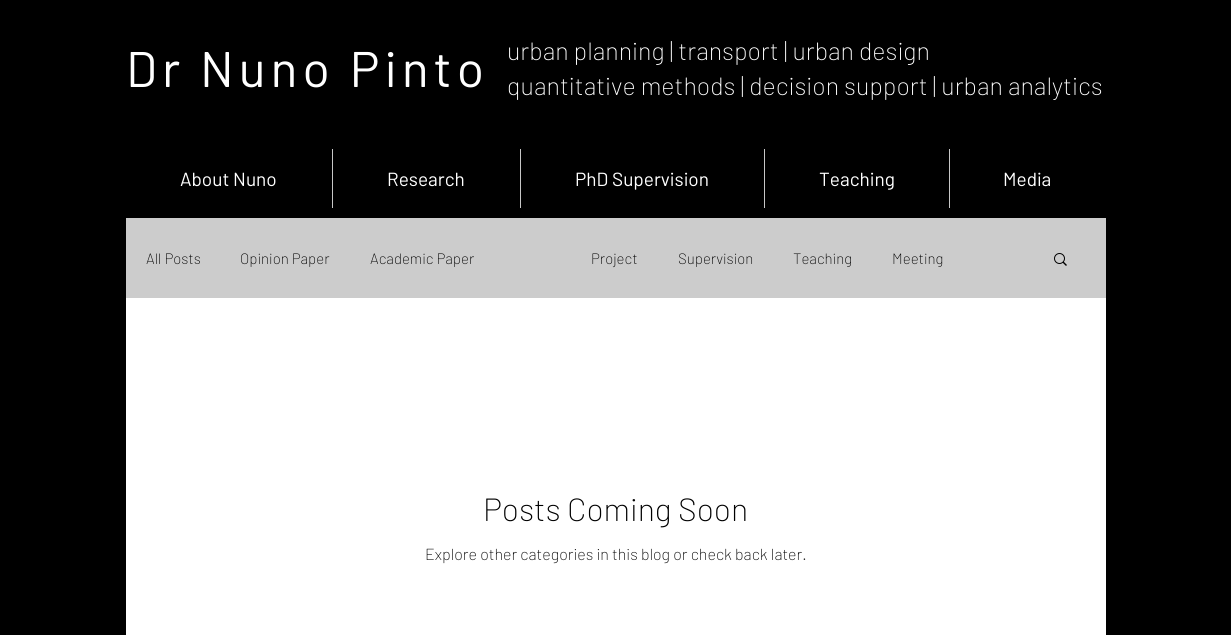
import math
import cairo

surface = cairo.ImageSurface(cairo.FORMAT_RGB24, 1231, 635)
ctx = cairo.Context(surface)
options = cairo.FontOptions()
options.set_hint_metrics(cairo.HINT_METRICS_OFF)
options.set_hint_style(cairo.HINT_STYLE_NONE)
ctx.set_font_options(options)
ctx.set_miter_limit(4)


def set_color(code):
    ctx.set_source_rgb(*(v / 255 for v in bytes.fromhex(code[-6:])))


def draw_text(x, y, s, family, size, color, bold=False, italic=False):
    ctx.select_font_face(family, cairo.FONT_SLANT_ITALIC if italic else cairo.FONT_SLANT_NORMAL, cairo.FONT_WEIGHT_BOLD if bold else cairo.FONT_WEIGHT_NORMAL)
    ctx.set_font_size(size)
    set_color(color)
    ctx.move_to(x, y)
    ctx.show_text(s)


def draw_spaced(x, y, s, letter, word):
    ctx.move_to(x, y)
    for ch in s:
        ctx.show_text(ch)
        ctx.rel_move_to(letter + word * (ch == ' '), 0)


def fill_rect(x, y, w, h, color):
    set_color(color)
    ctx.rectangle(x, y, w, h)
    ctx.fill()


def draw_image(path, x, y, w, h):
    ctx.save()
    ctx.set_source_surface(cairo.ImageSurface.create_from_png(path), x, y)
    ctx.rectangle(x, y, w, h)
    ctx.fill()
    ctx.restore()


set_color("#000000")
ctx.paint()
ctx.select_font_face("Barlow")
ctx.set_font_size(50)
set_color("#ffffff")
draw_spaced(126, 87, "Dr Nuno Pinto", 5, 0)
draw_text(507, 60, "urban planning | transport | urban design", "Barlow ExtraLight", 25, "#ffffff")
draw_text(507, 95, "quantitative methods | decision support | urban analytics", "Barlow ExtraLight", 25, "#ffffff")
draw_text(180, 186, "About Nuno", "Barlow", 19, "#ffffff")
fill_rect(332, 149, 1, 59, "#c7c7c7")
draw_text(387, 186, "Research", "Barlow", 19, "#ffffff")
fill_rect(520, 149, 1, 59, "#c7c7c7")
draw_text(575, 186, "PhD Supervision", "Barlow", 19, "#ffffff")
fill_rect(764, 149, 1, 59, "#c7c7c7")
draw_text(819, 186, "Teaching", "Barlow", 19, "#ffffff")
fill_rect(949, 149, 1, 59, "#c7c7c7")
draw_text(1003, 186, "Media", "Barlow", 19, "#ffffff")
fill_rect(126, 298, 980, 337, "#ffffff")
fill_rect(126, 218, 980, 80, "#cccccc")
draw_text(146, 264, "All Posts", "Barlow ExtraLight", 15, "#000000")
draw_text(240, 264, "Opinion Paper", "Barlow ExtraLight", 15, "#000000")
draw_text(370, 264, "Academic Paper", "Barlow ExtraLight", 15, "#000000")
draw_text(591, 264, "Project", "Barlow ExtraLight", 15, "#000000")
draw_text(678, 264, "Supervision", "Barlow ExtraLight", 15, "#000000")
draw_text(793, 264, "Teaching", "Barlow ExtraLight", 15, "#000000")
draw_text(892, 264, "Meeting", "Barlow ExtraLight", 15, "#000000")
draw_image("assets/img1.png", 1054, 253, 13, 13)
draw_text(483, 521, "Posts Coming Soon", "Barlow ExtraLight", 32, "#000000")
draw_text(425, 560, "Explore other categories in this blog or check back later.", "Barlow ExtraLight", 16, "#000000")
surface.write_to_png("output.png")
